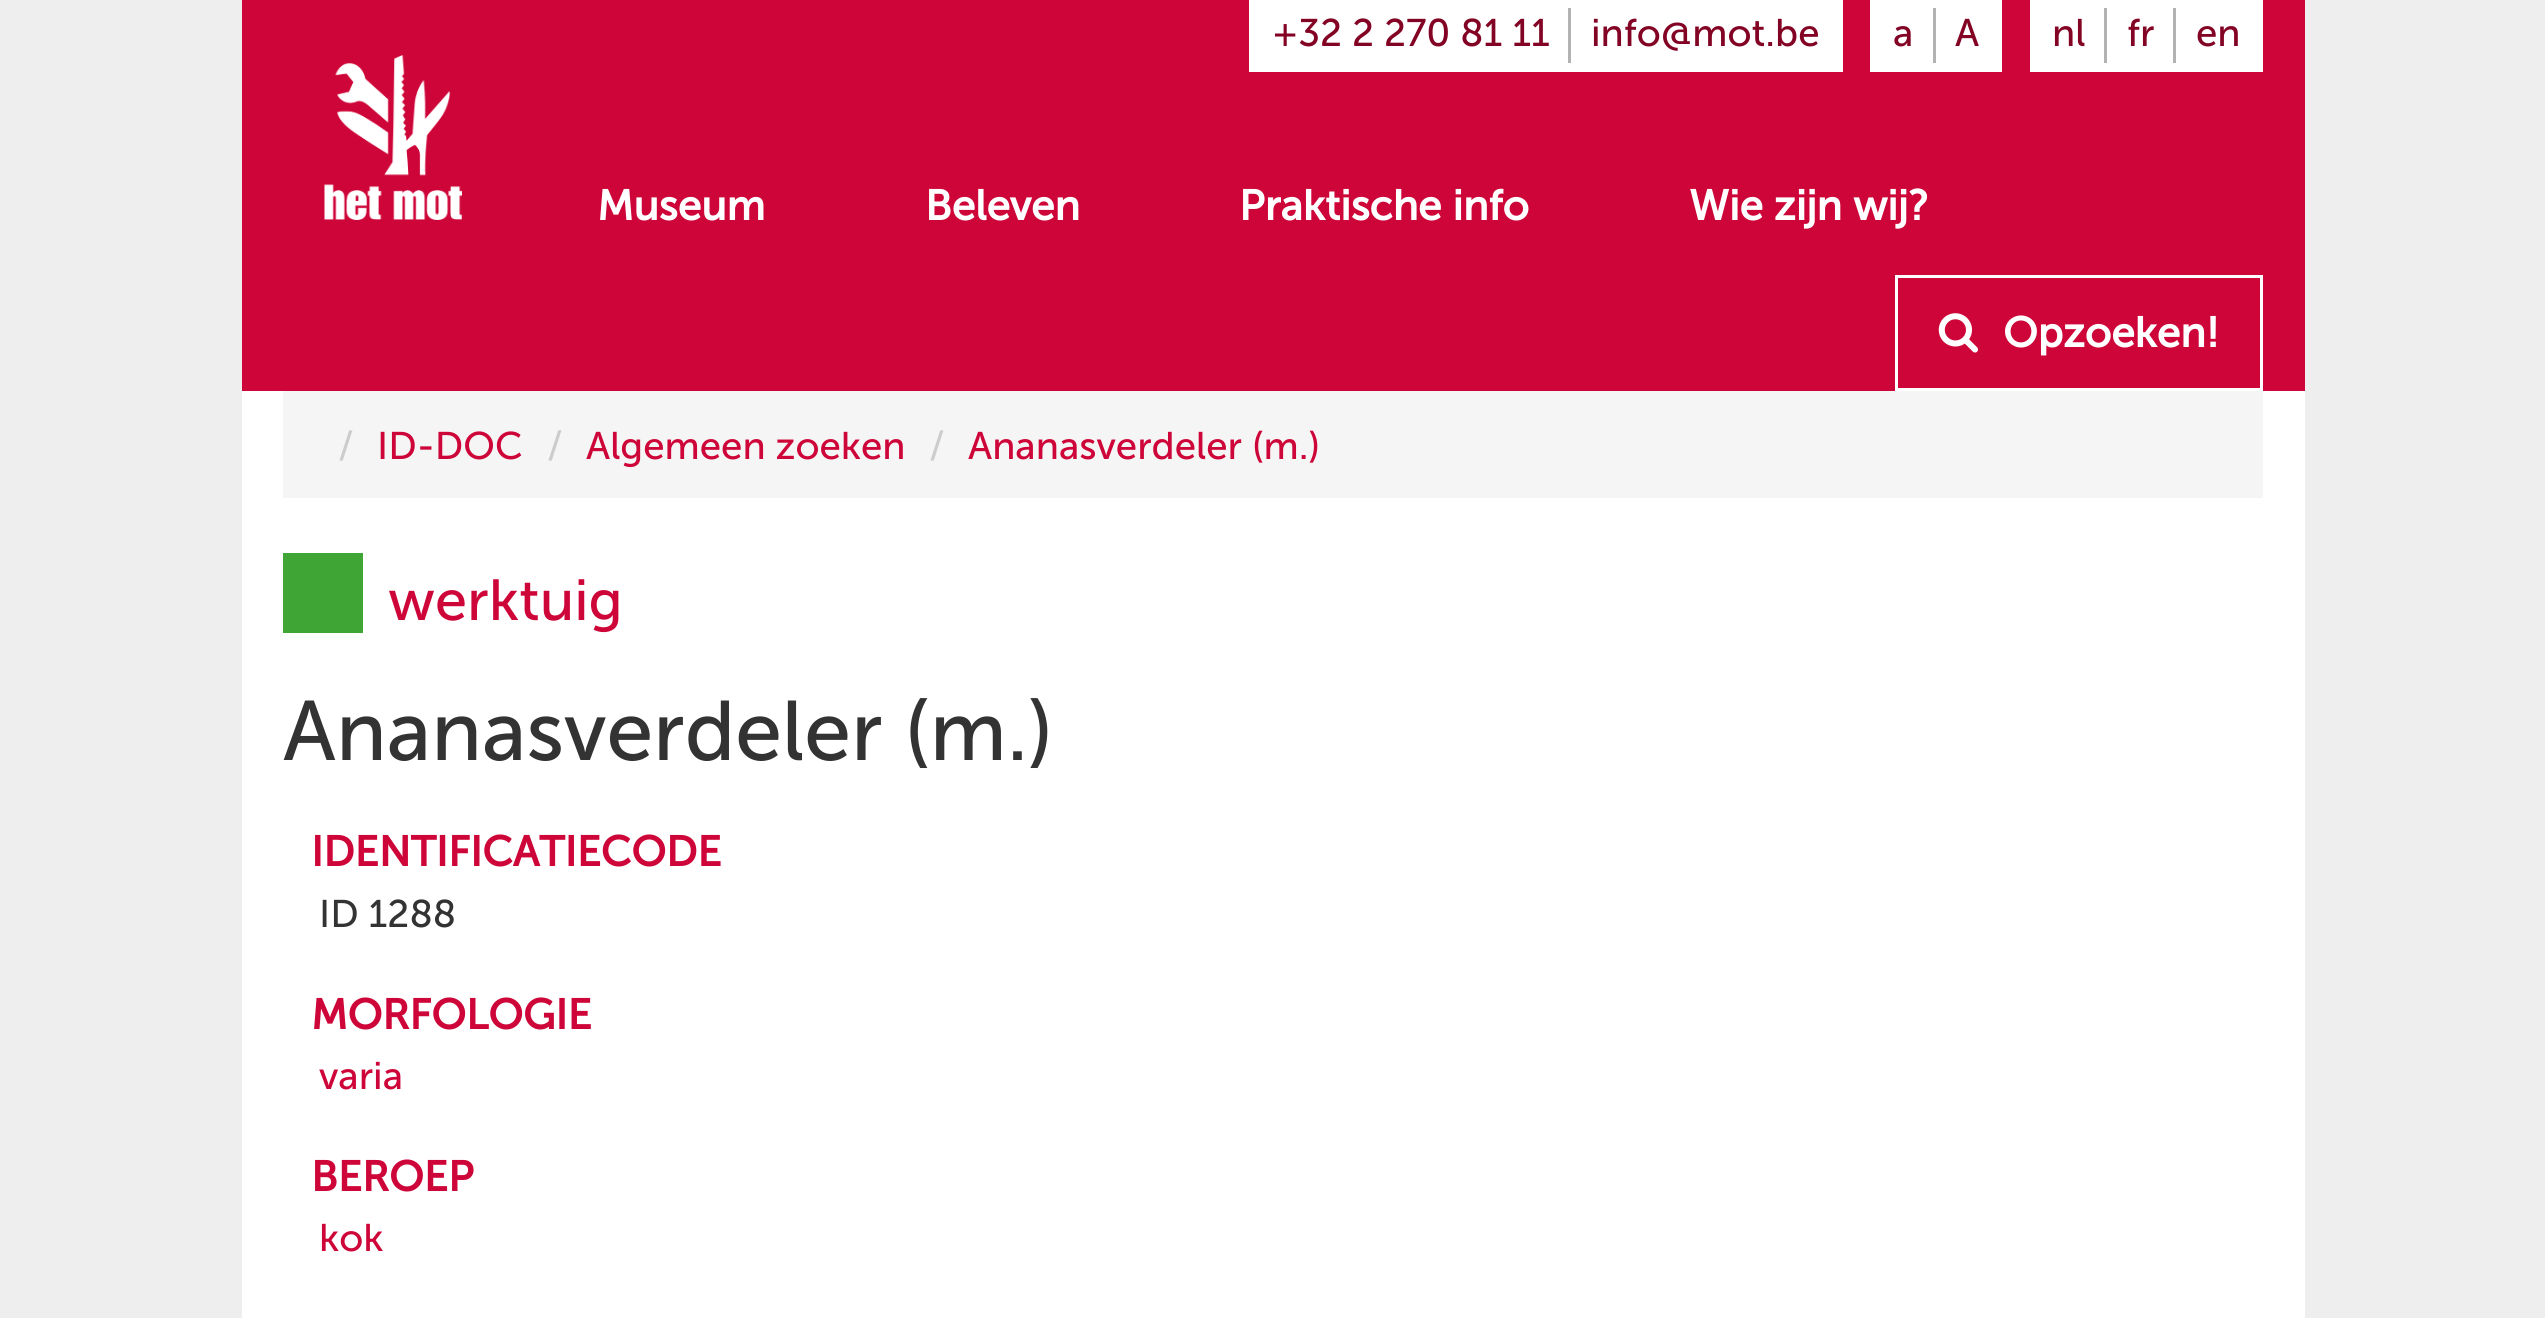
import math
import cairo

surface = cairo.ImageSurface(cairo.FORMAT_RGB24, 2545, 1318)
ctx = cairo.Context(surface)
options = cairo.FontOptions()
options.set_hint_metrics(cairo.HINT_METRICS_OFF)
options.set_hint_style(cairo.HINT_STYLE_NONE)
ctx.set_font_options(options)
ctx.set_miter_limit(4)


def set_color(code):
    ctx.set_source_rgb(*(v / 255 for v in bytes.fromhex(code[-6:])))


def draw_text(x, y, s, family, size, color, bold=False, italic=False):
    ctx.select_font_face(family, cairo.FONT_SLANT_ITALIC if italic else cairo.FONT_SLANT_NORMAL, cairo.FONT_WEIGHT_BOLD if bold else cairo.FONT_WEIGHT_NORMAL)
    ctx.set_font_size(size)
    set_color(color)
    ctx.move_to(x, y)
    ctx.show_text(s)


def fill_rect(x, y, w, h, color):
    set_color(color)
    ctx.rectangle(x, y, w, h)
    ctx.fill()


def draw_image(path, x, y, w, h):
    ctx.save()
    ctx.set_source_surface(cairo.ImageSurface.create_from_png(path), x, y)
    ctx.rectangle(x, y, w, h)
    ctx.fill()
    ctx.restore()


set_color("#eeeeee")
ctx.paint()
fill_rect(242, 391, 2063, 927, "#ffffff")
fill_rect(242, 0, 2063, 391, "#ce0538")
draw_image("assets/img1.png", 324, 55, 138, 165)
fill_rect(1249, 0, 594, 72, "#ffffff")
fill_rect(1568, 8, 3, 55, "#b3b3b3")
draw_text(1272, 46, "+32 2 270 81 11", "Museo Sans", 38.5, "#830324")
draw_text(1591, 46, "info@mot.be", "Museo Sans", 38.5, "#830324")
fill_rect(1870, 0, 132, 72, "#ffffff")
fill_rect(1933, 8, 3, 55, "#b3b3b3")
draw_text(1893, 46, "a", "Museo Sans", 38.5, "#830324")
draw_text(1955, 46, "A", "Museo Sans", 38.5, "#830324")
fill_rect(2030, 0, 233, 72, "#ffffff")
fill_rect(2104, 8, 3, 55, "#b3b3b3")
draw_text(2052, 46, "nl", "Museo Sans", 38.5, "#830324")
fill_rect(2173, 8, 3, 55, "#b3b3b3")
draw_text(2127, 46, "fr", "Museo Sans", 38.5, "#830324")
draw_text(2196, 46, "en", "Museo Sans", 38.5, "#830324")
draw_text(597, 220, "Museum", "Museo Sans", 42.25, "#ffffff", bold=True)
draw_text(925, 220, "Beleven", "Museo Sans", 42.25, "#ffffff", bold=True)
draw_text(1239, 220, "Praktische info", "Museo Sans", 42.25, "#ffffff", bold=True)
draw_text(1689, 220, "Wie zijn wij?", "Museo Sans", 42.25, "#ffffff", bold=True)
ctx.rectangle(1896.5, 276.5, 365, 113)
ctx.set_line_width(3)
ctx.stroke()
draw_image("assets/img2.png", 1938, 313, 41, 40)
draw_text(2003, 347, "Opzoeken!", "Museo Sans", 42.25, "#ffffff", bold=True)
fill_rect(283, 391, 1980, 107, "#f5f5f5")
draw_text(338, 459, "/", "Museo Sans", 38.5, "#cccccc")
draw_text(377, 459, "ID-DOC", "Museo Sans", 38.5, "#ce0538")
draw_text(547, 459, "/", "Museo Sans", 38.5, "#cccccc")
draw_text(586, 459, "Algemeen zoeken", "Museo Sans", 38.5, "#ce0538")
draw_text(929, 459, "/", "Museo Sans", 38.5, "#cccccc")
draw_text(968, 459, "Ananasverdeler (m.)", "Museo Sans", 38.5, "#ce0538")
fill_rect(283, 553, 80, 80, "#3fa535")
draw_text(388, 620, "werktuig", "Museo Sans", 57.75, "#ce0538")
draw_text(283, 760, "Ananasverdeler (m.)", "Museo Sans", 84.25, "#333333")
draw_text(311, 866, "IDENTIFICATIECODE", "Museo Sans", 42.25, "#ce0538", bold=True)
draw_text(319, 927, "ID 1288", "Museo Sans", 38.5, "#333333")
draw_text(311, 1029, "MORFOLOGIE", "Museo Sans", 42.25, "#ce0538", bold=True)
draw_text(319, 1089, "varia", "Museo Sans", 38.5, "#ce0538")
draw_text(311, 1191, "BEROEP", "Museo Sans", 42.25, "#ce0538", bold=True)
draw_text(319, 1251, "kok", "Museo Sans", 38.5, "#ce0538")
surface.write_to_png("output.png")
